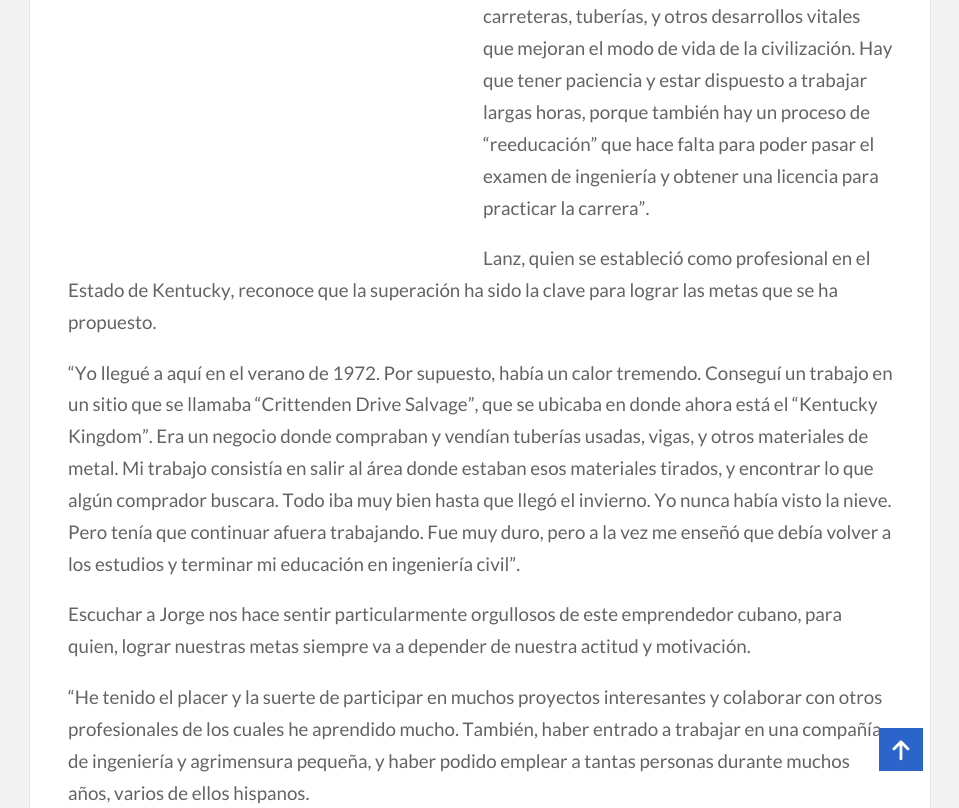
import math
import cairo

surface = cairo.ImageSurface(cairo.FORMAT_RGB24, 959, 808)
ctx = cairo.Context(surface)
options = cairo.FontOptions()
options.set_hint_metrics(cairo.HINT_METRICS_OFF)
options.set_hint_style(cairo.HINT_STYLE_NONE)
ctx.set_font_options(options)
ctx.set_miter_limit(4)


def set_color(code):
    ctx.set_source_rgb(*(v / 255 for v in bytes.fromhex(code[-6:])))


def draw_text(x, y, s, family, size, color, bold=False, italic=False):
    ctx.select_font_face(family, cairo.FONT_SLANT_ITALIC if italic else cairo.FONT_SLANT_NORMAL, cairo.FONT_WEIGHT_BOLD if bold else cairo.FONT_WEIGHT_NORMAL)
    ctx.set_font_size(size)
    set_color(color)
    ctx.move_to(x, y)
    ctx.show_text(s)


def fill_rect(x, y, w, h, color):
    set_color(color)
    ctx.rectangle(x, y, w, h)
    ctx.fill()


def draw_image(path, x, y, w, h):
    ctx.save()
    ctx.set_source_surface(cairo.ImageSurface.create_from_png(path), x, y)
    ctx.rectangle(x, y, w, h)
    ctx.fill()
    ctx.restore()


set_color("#f2f2f2")
ctx.paint()
set_color("#ffffff")
ctx.rectangle(29.5, -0.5, 901, 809)
ctx.fill_preserve()
set_color("#e6e6e6")
ctx.set_line_width(1)
ctx.stroke()
draw_text(483, 23, "carreteras, tuberías, y otros desarrollos vitales", "Lato", 18.75, "#636363")
draw_text(483, 55, "que mejoran el modo de vida de la civilización. Hay", "Lato", 18.75, "#636363")
draw_text(483, 87, "que tener paciencia y estar dispuesto a trabajar", "Lato", 18.75, "#636363")
draw_text(483, 119, "largas horas, porque también hay un proceso de", "Lato", 18.75, "#636363")
draw_text(483, 151, "“reeducación” que hace falta para poder pasar el", "Lato", 18.75, "#636363")
draw_text(483, 183, "examen de ingeniería y obtener una licencia para", "Lato", 18.75, "#636363")
draw_text(483, 215, "practicar la carrera”.", "Lato", 18.75, "#636363")
draw_text(483, 265, "Lanz, quien se estableció como profesional en el", "Lato", 18.75, "#636363")
draw_text(68, 297, "Estado de Kentucky, reconoce que la superación ha sido la clave para lograr las metas que se ha", "Lato", 18.75, "#636363")
draw_text(68, 329, "propuesto.", "Lato", 18.75, "#636363")
draw_text(68, 380, "“Yo llegué a aquí en el verano de 1972. Por supuesto, había un calor tremendo. Conseguí un trabajo en", "Lato", 18.75, "#636363")
draw_text(68, 411, "un sitio que se llamaba “Crittenden Drive Salvage”, que se ubicaba en donde ahora está el “Kentucky", "Lato", 18.75, "#636363")
draw_text(68, 443, "Kingdom”. Era un negocio donde compraban y vendían tuberías usadas, vigas, y otros materiales de", "Lato", 18.75, "#636363")
draw_text(68, 475, "metal. Mi trabajo consistía en salir al área donde estaban esos materiales tirados, y encontrar lo que", "Lato", 18.75, "#636363")
draw_text(68, 507, "algún comprador buscara. Todo iba muy bien hasta que llegó el invierno. Yo nunca había visto la nieve.", "Lato", 18.75, "#636363")
draw_text(68, 539, "Pero tenía que continuar afuera trabajando. Fue muy duro, pero a la vez me enseñó que debía volver a", "Lato", 18.75, "#636363")
draw_text(68, 571, "los estudios y terminar mi educación en ingeniería civil”.", "Lato", 18.75, "#636363")
draw_text(68, 621, "Escuchar a Jorge nos hace sentir particularmente orgullosos de este emprendedor cubano, para", "Lato", 18.75, "#636363")
draw_text(68, 653, "quien, lograr nuestras metas siempre va a depender de nuestra actitud y motivación.", "Lato", 18.75, "#636363")
draw_text(68, 704, "“He tenido el placer y la suerte de participar en muchos proyectos interesantes y colaborar con otros", "Lato", 18.75, "#636363")
draw_text(68, 736, "profesionales de los cuales he aprendido mucho. También, haber entrado a trabajar en una compañía", "Lato", 18.75, "#636363")
draw_text(68, 768, "de ingeniería y agrimensura pequeña, y haber podido emplear a tantas personas durante muchos", "Lato", 18.75, "#636363")
draw_text(68, 800, "años, varios de ellos hispanos.", "Lato", 18.75, "#636363")
fill_rect(879, 728, 44, 43, "#2c65c9")
draw_image("assets/img1.png", 892, 740, 18, 21)
surface.write_to_png("output.png")
